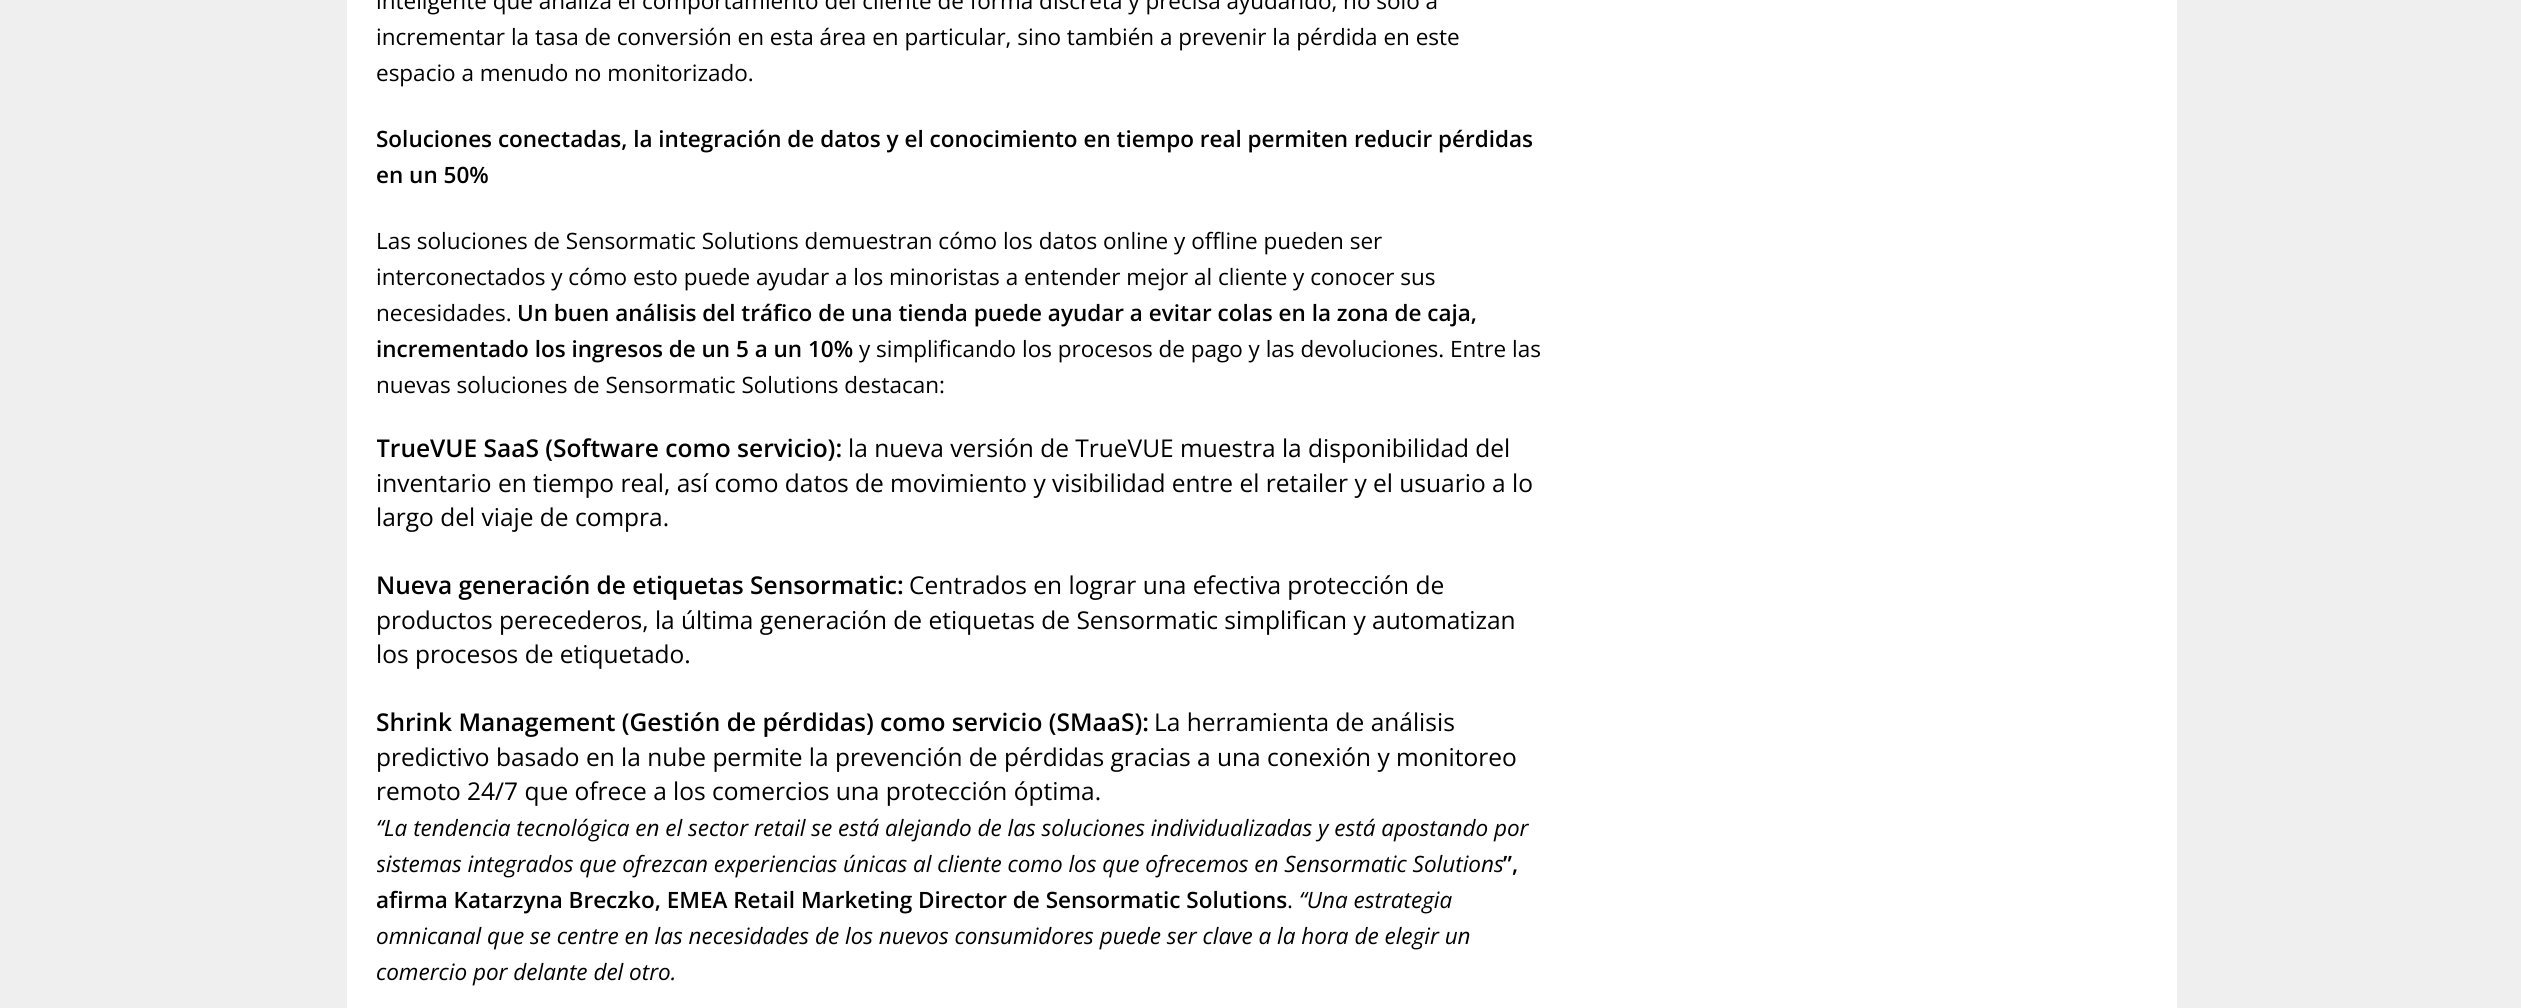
import math
import cairo

surface = cairo.ImageSurface(cairo.FORMAT_RGB24, 2521, 1008)
ctx = cairo.Context(surface)
options = cairo.FontOptions()
options.set_hint_metrics(cairo.HINT_METRICS_OFF)
options.set_hint_style(cairo.HINT_STYLE_NONE)
ctx.set_font_options(options)
ctx.set_miter_limit(4)


def set_color(code):
    ctx.set_source_rgb(*(v / 255 for v in bytes.fromhex(code[-6:])))


def draw_text(x, y, s, family, size, color, bold=False, italic=False):
    ctx.select_font_face(family, cairo.FONT_SLANT_ITALIC if italic else cairo.FONT_SLANT_NORMAL, cairo.FONT_WEIGHT_BOLD if bold else cairo.FONT_WEIGHT_NORMAL)
    ctx.set_font_size(size)
    set_color(color)
    ctx.move_to(x, y)
    ctx.show_text(s)


def fill_rect(x, y, w, h, color):
    set_color(color)
    ctx.rectangle(x, y, w, h)
    ctx.fill()


set_color("#efefef")
ctx.paint()
fill_rect(347, 0, 1830, 1008, "#ffffff")
draw_text(376, 9, "inteligente que analiza el comportamiento del cliente de forma discreta y precisa ayudando, no sólo a", "Open Sans", 22.5, "#000000")
draw_text(376, 45, "incrementar la tasa de conversión en esta área en particular, sino también a prevenir la pérdida en este", "Open Sans", 22.5, "#000000")
draw_text(376, 81, "espacio a menudo no monitorizado.", "Open Sans", 22.5, "#000000")
ctx.save()
ctx.rectangle(377, 0, 1164, 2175)
ctx.clip()
draw_text(376, 147, "Soluciones conectadas, la integración de datos y el conocimiento en tiempo real permiten reducir pérdidas", "Open Sans SemiBold", 22.5, "#000000")
ctx.restore()
draw_text(376, 183, "en un 50%", "Open Sans SemiBold", 22.5, "#000000")
draw_text(376, 249, "Las soluciones de Sensormatic Solutions demuestran cómo los datos online y offline pueden ser", "Open Sans", 22.5, "#000000")
draw_text(376, 285, "interconectados y cómo esto puede ayudar a los minoristas a entender mejor al cliente y conocer sus", "Open Sans", 22.5, "#000000")
draw_text(376, 321, "necesidades.", "Open Sans", 22.5, "#000000")
draw_text(517, 321, "Un buen análisis del tráfico de una tienda puede ayudar a evitar colas en la zona de caja,", "Open Sans SemiBold", 22.5, "#000000")
draw_text(376, 357, "incrementado los ingresos de un 5 a un 10%", "Open Sans SemiBold", 22.5, "#000000")
draw_text(859, 357, "y simplificando los procesos de pago y las devoluciones. Entre las", "Open Sans", 22.5, "#000000")
draw_text(376, 393, "nuevas soluciones de Sensormatic Solutions destacan:", "Open Sans", 22.5, "#000000")
ctx.save()
ctx.rectangle(377, 0, 1164, 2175)
ctx.clip()
draw_text(376, 457, "TrueVUE SaaS (Software como servicio):", "Open Sans SemiBold", 24.5, "#000000")
ctx.restore()
draw_text(848, 457, "la nueva versión de TrueVUE muestra la disponibilidad del", "Open Sans", 24.5, "#000000")
draw_text(376, 492, "inventario en tiempo real, así como datos de movimiento y visibilidad entre el retailer y el usuario a lo", "Open Sans", 24.5, "#000000")
draw_text(376, 526, "largo del viaje de compra.", "Open Sans", 24.5, "#000000")
draw_text(376, 594, "Nueva generación de etiquetas Sensormatic:", "Open Sans SemiBold", 24.5, "#000000")
draw_text(909, 594, "Centrados en lograr una efectiva protección de", "Open Sans", 24.5, "#000000")
draw_text(376, 629, "productos perecederos, la última generación de etiquetas de Sensormatic simplifican y automatizan", "Open Sans", 24.5, "#000000")
draw_text(376, 663, "los procesos de etiquetado.", "Open Sans", 24.5, "#000000")
draw_text(376, 731, "Shrink Management (Gestión de pérdidas) como servicio (SMaaS):", "Open Sans SemiBold", 24.5, "#000000")
draw_text(1154, 731, "La herramienta de análisis", "Open Sans", 24.5, "#000000")
draw_text(376, 766, "predictivo basado en la nube permite la prevención de pérdidas gracias a una conexión y monitoreo", "Open Sans", 24.5, "#000000")
draw_text(376, 800, "remoto 24/7 que ofrece a los comercios una protección óptima.", "Open Sans", 24.5, "#000000")
draw_text(376, 836, "“La tendencia tecnológica en el sector retail se está alejando de las soluciones individualizadas y está apostando por", "Open Sans", 22.5, "#000000", italic=True)
ctx.save()
ctx.rectangle(377, 0, 1164, 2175)
ctx.clip()
draw_text(376, 872, "sistemas integrados que ofrezcan experiencias únicas al cliente como los que ofrecemos en Sensormatic Solutions", "Open Sans", 22.5, "#000000", italic=True)
ctx.restore()
draw_text(1503, 872, "”,", "Open Sans SemiBold", 22.5, "#000000")
ctx.save()
ctx.rectangle(377, 0, 1164, 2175)
ctx.clip()
draw_text(376, 908, "afirma Katarzyna Breczko, EMEA Retail Marketing Director de Sensormatic Solutions", "Open Sans SemiBold", 22.5, "#000000")
ctx.restore()
draw_text(1287, 908, ".", "Open Sans", 22.5, "#000000")
draw_text(1299, 908, "“Una estrategia", "Open Sans", 22.5, "#000000", italic=True)
draw_text(376, 944, "omnicanal que se centre en las necesidades de los nuevos consumidores puede ser clave a la hora de elegir un", "Open Sans", 22.5, "#000000", italic=True)
draw_text(376, 980, "comercio por delante del otro.", "Open Sans", 22.5, "#000000", italic=True)
surface.write_to_png("output.png")
